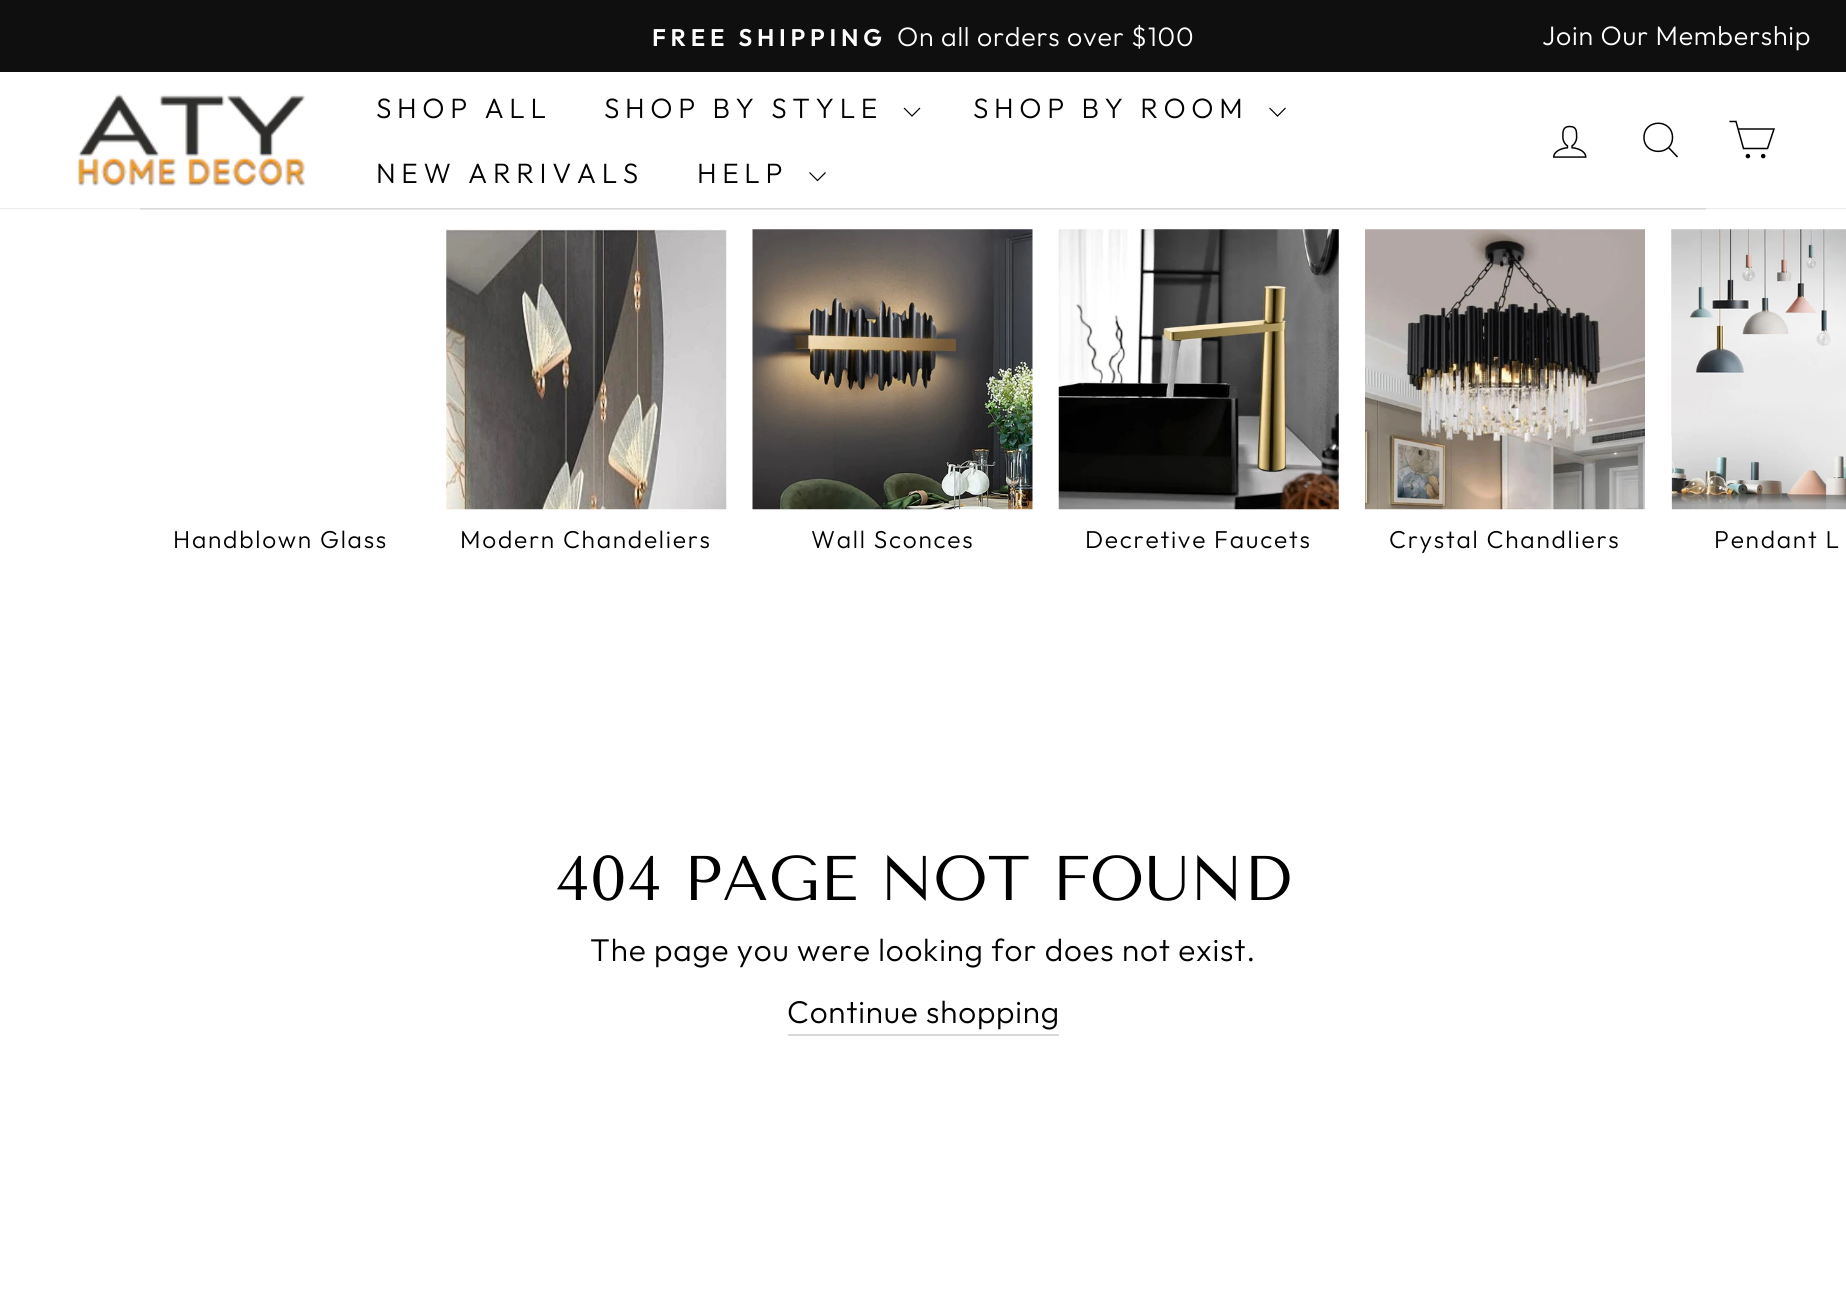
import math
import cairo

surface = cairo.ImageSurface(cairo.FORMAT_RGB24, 1846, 1292)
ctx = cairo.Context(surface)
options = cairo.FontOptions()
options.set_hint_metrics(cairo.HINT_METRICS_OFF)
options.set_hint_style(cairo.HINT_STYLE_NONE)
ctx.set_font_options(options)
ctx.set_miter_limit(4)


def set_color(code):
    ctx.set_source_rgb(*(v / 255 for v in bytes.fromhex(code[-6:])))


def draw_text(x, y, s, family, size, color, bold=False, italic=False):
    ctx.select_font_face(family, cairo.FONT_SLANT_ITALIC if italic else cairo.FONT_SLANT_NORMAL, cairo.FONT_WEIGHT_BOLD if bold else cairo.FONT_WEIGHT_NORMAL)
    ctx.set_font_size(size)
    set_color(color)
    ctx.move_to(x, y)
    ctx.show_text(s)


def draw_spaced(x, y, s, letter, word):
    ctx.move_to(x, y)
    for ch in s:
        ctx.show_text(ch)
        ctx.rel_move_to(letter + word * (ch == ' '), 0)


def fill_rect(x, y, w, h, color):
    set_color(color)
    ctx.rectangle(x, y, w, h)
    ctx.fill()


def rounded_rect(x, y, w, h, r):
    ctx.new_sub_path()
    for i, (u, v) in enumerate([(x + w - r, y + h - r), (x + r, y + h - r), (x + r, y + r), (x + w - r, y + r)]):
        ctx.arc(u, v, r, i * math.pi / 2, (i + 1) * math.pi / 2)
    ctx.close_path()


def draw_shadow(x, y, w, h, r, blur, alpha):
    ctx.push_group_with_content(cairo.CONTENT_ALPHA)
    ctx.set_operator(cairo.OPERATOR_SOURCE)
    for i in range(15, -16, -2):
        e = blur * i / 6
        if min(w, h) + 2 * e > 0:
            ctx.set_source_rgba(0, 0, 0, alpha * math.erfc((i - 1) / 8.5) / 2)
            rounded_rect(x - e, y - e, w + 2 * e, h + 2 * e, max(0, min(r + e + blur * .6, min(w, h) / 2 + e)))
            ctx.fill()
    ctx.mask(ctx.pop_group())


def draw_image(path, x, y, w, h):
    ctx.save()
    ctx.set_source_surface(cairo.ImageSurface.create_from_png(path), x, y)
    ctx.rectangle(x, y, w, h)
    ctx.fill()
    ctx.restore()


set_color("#ffffff")
ctx.paint()
fill_rect(0, 0, 1846, 72, "#0f0f0f")
ctx.select_font_face("Outfit SemiBold")
ctx.set_font_size(24)
set_color("#ffffff")
draw_spaced(652, 46, "FREE SHIPPING", 4.75, 0)
ctx.select_font_face("Outfit Light")
ctx.set_font_size(26.75)
draw_spaced(897, 46, "On all orders over $100", 0.8, 0)
draw_spaced(1542, 45, "Join Our Membership", 0.8, 0)
fill_rect(140, 208, 1566, 2, "#ebebeb")
ctx.save()
ctx.set_fill_rule(cairo.FILL_RULE_EVEN_ODD)
ctx.new_path()
ctx.move_to(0, 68)
ctx.line_to(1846, 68)
ctx.line_to(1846, 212)
ctx.line_to(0, 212)
ctx.close_path()
ctx.move_to(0, 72)
ctx.line_to(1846, 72)
ctx.line_to(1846, 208)
ctx.line_to(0, 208)
ctx.close_path()
ctx.clip()
set_color("#000000")
draw_shadow(0, 72, 1846, 136, 0, 1, 0.2)
ctx.restore()
draw_image("assets/img1.png", 78, 94, 227, 92)
ctx.set_font_size(28)
set_color("#000000")
draw_spaced(376, 118, "SHOP ALL", 5.6, 0)
draw_spaced(604, 118, "SHOP BY STYLE", 5.6, 0)
ctx.new_path()
ctx.move_to(904, 108)
ctx.line_to(912, 116)
ctx.line_to(920, 108)
ctx.set_line_width(1.2)
ctx.stroke()
draw_spaced(973, 118, "SHOP BY ROOM", 5.6, 0)
ctx.new_path()
ctx.move_to(1269.5, 108)
ctx.line_to(1277.5, 116)
ctx.line_to(1285.5, 108)
ctx.stroke()
draw_spaced(376, 183, "NEW ARRIVALS", 5.6, 0)
draw_spaced(697, 183, "HELP", 5.6, 0)
ctx.new_path()
ctx.move_to(809.5, 172.5)
ctx.line_to(817.5, 180.5)
ctx.line_to(825.5, 172.5)
ctx.stroke()
draw_image("assets/img2.png", 1552, 125, 35, 33)
ctx.new_path()
ctx.move_to(1672.5, 137.5)
ctx.curve_to(1672.5, 156, 1644, 156, 1644, 137.5)
ctx.curve_to(1644, 118.5, 1672.5, 118.5, 1672.5, 137.5)
ctx.close_path()
ctx.move_to(1677.5, 157)
ctx.line_to(1668.5, 147.5)
ctx.set_line_width(1.5)
ctx.stroke()
ctx.new_path()
ctx.move_to(1738, 129)
ctx.line_to(1774, 129)
ctx.line_to(1767.5, 148.5)
ctx.line_to(1743.5, 148.5)
ctx.line_to(1736, 121.5)
ctx.line_to(1729.5, 121.5)
ctx.stroke()
ctx.arc(1747.9, 156.1, 1.5, 0, 2 * math.pi)
ctx.fill_preserve()
ctx.stroke()
ctx.arc(1763.2, 156.1, 1.5, 0, 2 * math.pi)
ctx.fill_preserve()
ctx.stroke()
ctx.set_font_size(24.5)
draw_spaced(173, 548, "Handblown Glass", 1.75, 0)
draw_image("assets/img3.png", 446, 229, 281, 281)
draw_spaced(460, 548, "Modern Chandeliers", 1.75, 0)
draw_image("assets/img4.png", 752, 229, 281, 281)
draw_spaced(811, 548, "Wall Sconces", 1.75, 0)
draw_image("assets/img5.png", 1058, 229, 281, 281)
draw_spaced(1085, 548, "Decretive Faucets", 1.75, 0)
draw_image("assets/img6.png", 1365, 229, 280, 281)
draw_spaced(1389, 548, "Crystal Chandliers", 1.75, 0)
draw_image("assets/img7.png", 1671, 229, 175, 281)
draw_spaced(1714, 548, "Pendant L", 1.75, 0)
draw_text(555, 900, "404 PAGE NOT FOUND", "Tenor Sans", 63, "#000000")
ctx.select_font_face("Outfit Light")
ctx.set_font_size(31.5)
draw_spaced(590, 961, "The page you were looking for does not exist.", 0.8, 0)
fill_rect(788, 1034, 271, 2, "#d9d9d9")
set_color("#000000")
draw_spaced(787, 1023, "Continue shopping", 0.8, 0)
surface.write_to_png("output.png")
